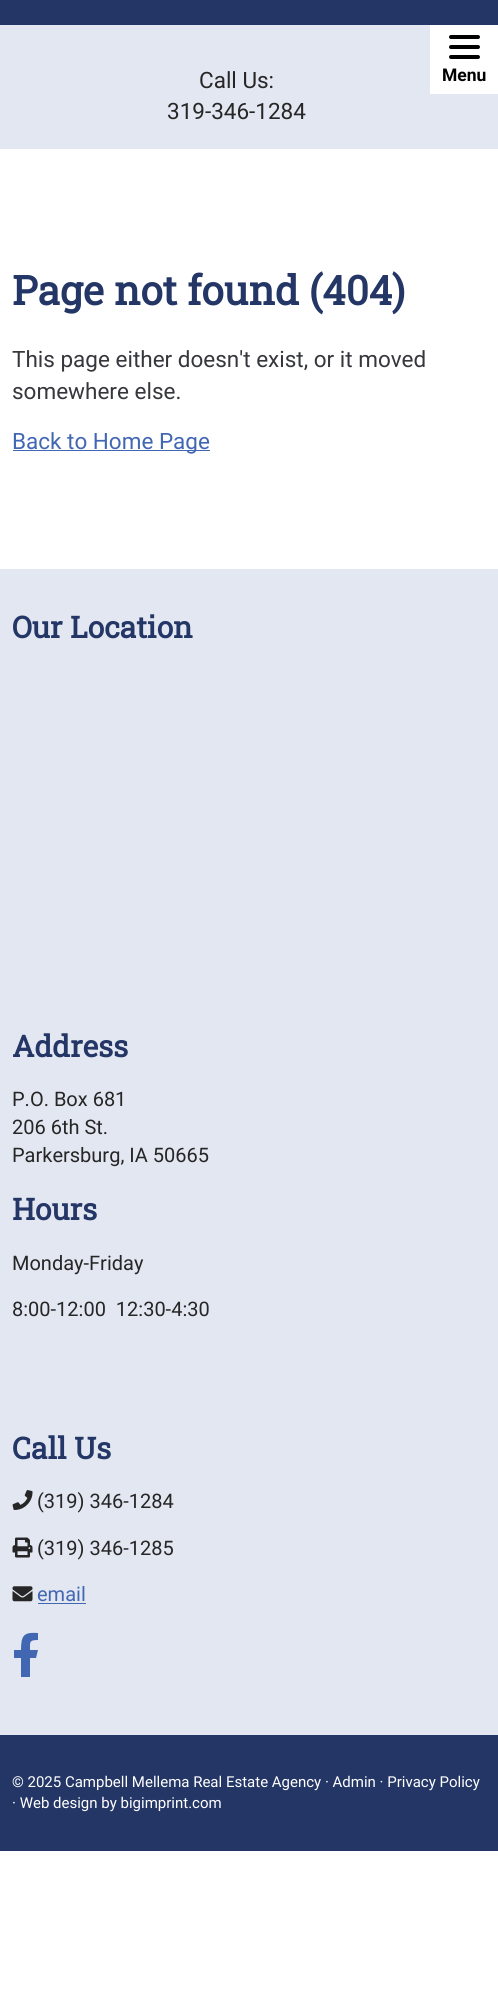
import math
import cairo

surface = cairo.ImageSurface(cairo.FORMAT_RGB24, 498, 2003)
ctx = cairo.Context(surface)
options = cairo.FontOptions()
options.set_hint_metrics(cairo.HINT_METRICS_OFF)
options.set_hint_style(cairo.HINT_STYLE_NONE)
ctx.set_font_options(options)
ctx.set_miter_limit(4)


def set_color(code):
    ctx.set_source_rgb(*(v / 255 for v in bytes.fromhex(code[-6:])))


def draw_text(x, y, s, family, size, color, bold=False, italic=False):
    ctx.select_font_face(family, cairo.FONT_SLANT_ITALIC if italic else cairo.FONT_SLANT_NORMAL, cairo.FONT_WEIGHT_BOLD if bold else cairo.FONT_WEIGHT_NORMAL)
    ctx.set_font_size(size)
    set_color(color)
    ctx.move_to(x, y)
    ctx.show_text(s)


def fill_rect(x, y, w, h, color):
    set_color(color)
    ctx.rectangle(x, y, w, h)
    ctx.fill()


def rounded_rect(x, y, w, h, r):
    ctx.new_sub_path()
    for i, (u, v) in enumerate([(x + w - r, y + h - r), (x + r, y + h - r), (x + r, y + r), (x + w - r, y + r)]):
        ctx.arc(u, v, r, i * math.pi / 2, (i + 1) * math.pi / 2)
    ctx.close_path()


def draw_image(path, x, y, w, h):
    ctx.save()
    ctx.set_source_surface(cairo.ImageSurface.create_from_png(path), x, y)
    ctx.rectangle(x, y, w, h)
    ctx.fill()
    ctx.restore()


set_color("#ffffff")
ctx.paint()
fill_rect(0, 0, 498, 25, "#243666")
fill_rect(0, 25, 498, 124, "#e3e7f1")
draw_text(199, 88, "Call Us:", "Roboto", 22.5, "#262626")
draw_text(167, 119, "319-346-1284", "Roboto", 22.5, "#262626")
fill_rect(430, 25, 68, 69, "#ffffff")
set_color("#000000")
rounded_rect(449, 45, 31, 4, 2)
ctx.fill()
rounded_rect(449, 35, 31, 4, 2)
ctx.fill()
rounded_rect(449, 55, 31, 4, 2)
ctx.fill()
draw_text(442, 81, "Menu", "Roboto", 17.5, "#000000", bold=True)
draw_text(12, 305, "Page not found (404)", "Roboto Slab", 40.5, "#243666", bold=True)
draw_text(12, 367, "This page either doesn't exist, or it moved", "Roboto", 22.5, "#36373c")
draw_text(12, 399, "somewhere else.", "Roboto", 22.5, "#36373c")
fill_rect(13, 450, 197, 1, "#4267b2")
draw_text(12, 449, "Back to Home Page", "Roboto", 22.5, "#4267b2")
fill_rect(0, 569, 498, 1166, "#e3e7f1")
draw_text(12, 638, "Our Location", "Roboto Slab", 30, "#243666", bold=True)
draw_text(12, 1057, "Address", "Roboto Slab", 30, "#243666", bold=True)
draw_text(12, 1106, "P.O. Box 681", "Roboto", 20, "#262626")
draw_text(12, 1134, "206 6th St.", "Roboto", 20, "#262626")
draw_text(12, 1162, "Parkersburg, IA 50665", "Roboto", 20, "#262626")
draw_text(12, 1220, "Hours", "Roboto Slab", 30, "#243666", bold=True)
draw_text(12, 1270, "Monday-Friday", "Roboto", 20, "#262626")
draw_text(12, 1316, "8:00-12:00  12:30-4:30", "Roboto", 20, "#262626")
draw_text(12, 1459, "Call Us", "Roboto Slab", 30, "#243666", bold=True)
draw_image("assets/img1.png", 12, 1490, 21, 20)
draw_text(37, 1508, "(319) 346-1284", "Roboto", 20, "#262626")
draw_image("assets/img2.png", 12, 1537, 21, 21)
draw_text(37, 1555, "(319) 346-1285", "Roboto", 20, "#262626")
draw_image("assets/img3.png", 12, 1586, 21, 16)
draw_text(37, 1601, "email", "Roboto", 20, "#4267b2")
fill_rect(38, 1603, 48, 1, "#4267b2")
ctx.new_path()
ctx.move_to(36, 1658)
ctx.line_to(30, 1658)
ctx.line_to(30, 1677)
ctx.line_to(21, 1677)
ctx.line_to(21, 1658)
ctx.line_to(14, 1658)
ctx.line_to(14, 1650)
ctx.line_to(21, 1650)
ctx.curve_to(21, 1635, 24, 1632, 38, 1633)
ctx.line_to(38, 1640)
ctx.curve_to(29, 1640, 30, 1642, 30, 1650)
ctx.line_to(38, 1650)
ctx.close_path()
ctx.fill()
fill_rect(0, 1735, 498, 116, "#243666")
draw_text(12, 1787, "© 2025 Campbell Mellema Real Estate Agency · Admin · Privacy Policy", "Roboto", 15, "#ffffff")
draw_text(12, 1808, "· Web design by bigimprint.com", "Roboto", 15, "#ffffff")
surface.write_to_png("output.png")
